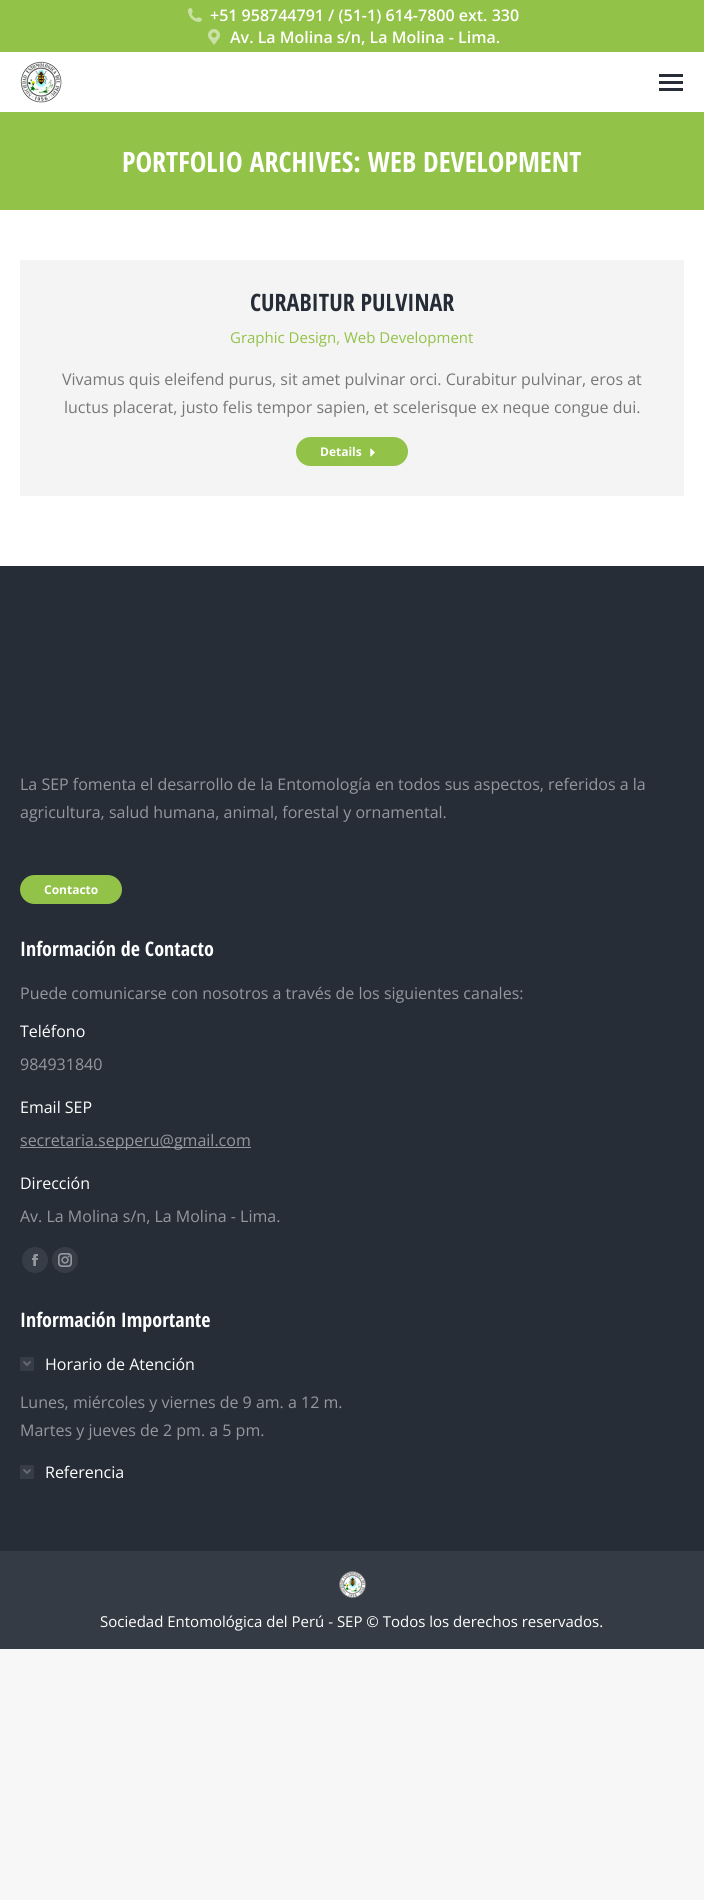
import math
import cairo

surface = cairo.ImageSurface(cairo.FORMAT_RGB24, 704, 1900)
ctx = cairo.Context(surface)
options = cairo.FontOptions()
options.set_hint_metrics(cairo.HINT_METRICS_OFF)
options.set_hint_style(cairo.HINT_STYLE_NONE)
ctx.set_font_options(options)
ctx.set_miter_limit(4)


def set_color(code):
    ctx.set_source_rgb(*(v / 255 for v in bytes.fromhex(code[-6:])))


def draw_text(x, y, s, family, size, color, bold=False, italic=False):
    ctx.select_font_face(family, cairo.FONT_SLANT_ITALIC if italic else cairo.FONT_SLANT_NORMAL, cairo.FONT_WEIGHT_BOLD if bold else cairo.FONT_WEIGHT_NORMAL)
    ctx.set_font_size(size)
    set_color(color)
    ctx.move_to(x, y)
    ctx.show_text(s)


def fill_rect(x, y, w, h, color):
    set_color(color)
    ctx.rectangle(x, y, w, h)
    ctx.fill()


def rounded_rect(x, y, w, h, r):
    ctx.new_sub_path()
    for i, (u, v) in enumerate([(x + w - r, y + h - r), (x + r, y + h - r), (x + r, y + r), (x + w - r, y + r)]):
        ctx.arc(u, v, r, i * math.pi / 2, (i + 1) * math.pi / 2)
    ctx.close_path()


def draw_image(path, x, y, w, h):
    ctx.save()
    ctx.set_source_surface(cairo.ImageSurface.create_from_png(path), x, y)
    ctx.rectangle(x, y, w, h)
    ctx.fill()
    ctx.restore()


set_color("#f7f7f7")
ctx.paint()
fill_rect(0, 52, 704, 514, "#ffffff")
fill_rect(0, 0, 704, 52, "#93c248")
draw_image("assets/img1.png", 188, 8, 14, 14)
draw_text(210, 21, "+51 958744791 / (51-1) 614-7800 ext. 330", "Open Sans SemiBold", 16, "#ffffff")
draw_image("assets/img2.png", 208, 29, 12, 16)
draw_text(230, 43, "Av. La Molina s/n, La Molina - Lima.", "Open Sans SemiBold", 16, "#ffffff")
draw_image("assets/img3.png", 20, 61, 42, 42)
fill_rect(659, 74, 24, 3, "#262d37")
fill_rect(659, 81, 24, 3, "#262d37")
fill_rect(659, 88, 24, 3, "#262d37")
fill_rect(0, 112, 704, 98, "#93c248")
draw_text(122, 172, "PORTFOLIO ARCHIVES: WEB DEVELOPMENT", "Open Sans Condensed", 28, "#ffffff", bold=True)
fill_rect(20, 260, 664, 236, "#f4f4f4")
draw_text(250, 311, "CURABITUR PULVINAR", "Open Sans Condensed", 24, "#262d37", bold=True)
draw_text(230, 343, "Graphic Design, Web Development", "Open Sans", 15, "#93c248")
draw_text(62, 385, "Vivamus quis eleifend purus, sit amet pulvinar orci. Curabitur pulvinar, eros at", "Open Sans", 16, "#777777")
draw_text(64, 413, "luctus placerat, justo felis tempor sapien, et scelerisque ex neque congue dui.", "Open Sans", 16, "#777777")
set_color("#93c248")
rounded_rect(296, 437, 112, 29, 14.5)
ctx.fill()
draw_text(320, 456, "Details", "Open Sans", 12, "#ffffff", bold=True)
draw_image("assets/img4.png", 370, 448, 5, 9)
fill_rect(0, 566, 704, 985, "#262d37")
draw_text(20, 790, "La SEP fomenta el desarrollo de la Entomología en todos sus aspectos, referidos a la", "Open Sans", 16, "#95989e")
draw_text(20, 818, "agricultura, salud humana, animal, forestal y ornamental.", "Open Sans", 16, "#95989e")
set_color("#93c248")
rounded_rect(20, 875, 102, 29, 14.5)
ctx.fill()
draw_text(44, 894, "Contacto", "Open Sans", 12, "#ffffff", bold=True)
draw_text(20, 956, "Información de Contacto", "Open Sans Condensed", 20, "#ffffff", bold=True)
draw_text(20, 999, "Puede comunicarse con nosotros a través de los siguientes canales:", "Open Sans", 16, "#95989e")
draw_text(20, 1037, "Teléfono", "Open Sans", 16, "#ffffff")
draw_text(20, 1070, "984931840", "Open Sans", 16, "#95989e")
draw_text(20, 1113, "Email SEP", "Open Sans", 16, "#ffffff")
fill_rect(20, 1147, 231, 1, "#95989e")
draw_text(20, 1146, "secretaria.sepperu@gmail.com", "Open Sans", 16, "#95989e")
draw_text(20, 1189, "Dirección", "Open Sans", 16, "#ffffff")
draw_text(20, 1222, "Av. La Molina s/n, La Molina - Lima.", "Open Sans", 16, "#95989e")
set_color("#373d46")
ctx.new_path()
ctx.arc(35, 1260, 13, 0, 2 * math.pi)
ctx.fill()
draw_image("assets/img5.png", 32, 1254, 6, 12)
ctx.arc(65, 1260, 13, 0, 2 * math.pi)
ctx.fill()
draw_image("assets/img6.png", 58, 1253, 14, 14)
draw_text(20, 1327, "Información Importante", "Open Sans Condensed", 20, "#ffffff", bold=True)
set_color("#373d46")
rounded_rect(20, 1357, 14, 14, 1)
ctx.fill()
draw_text(45, 1370, "Horario de Atención", "Open Sans", 16, "#ffffff")
draw_image("assets/img7.png", 23, 1361, 8, 5)
draw_text(20, 1408, "Lunes, miércoles y viernes de 9 am. a 12 m.", "Open Sans", 16, "#95989e")
draw_text(20, 1436, "Martes y jueves de 2 pm. a 5 pm.", "Open Sans", 16, "#95989e")
set_color("#373d46")
rounded_rect(20, 1465, 14, 14, 1)
ctx.fill()
draw_text(45, 1478, "Referencia", "Open Sans", 16, "#ffffff")
draw_image("assets/img7.png", 23, 1469, 8, 5)
fill_rect(0, 1551, 704, 98, "#353b44")
draw_image("assets/img8.png", 339, 1571, 27, 27)
draw_text(100, 1627, "Sociedad Entomológica del Perú - SEP © Todos los derechos reservados.", "Open Sans", 15, "#ffffff")
surface.write_to_png("output.png")
